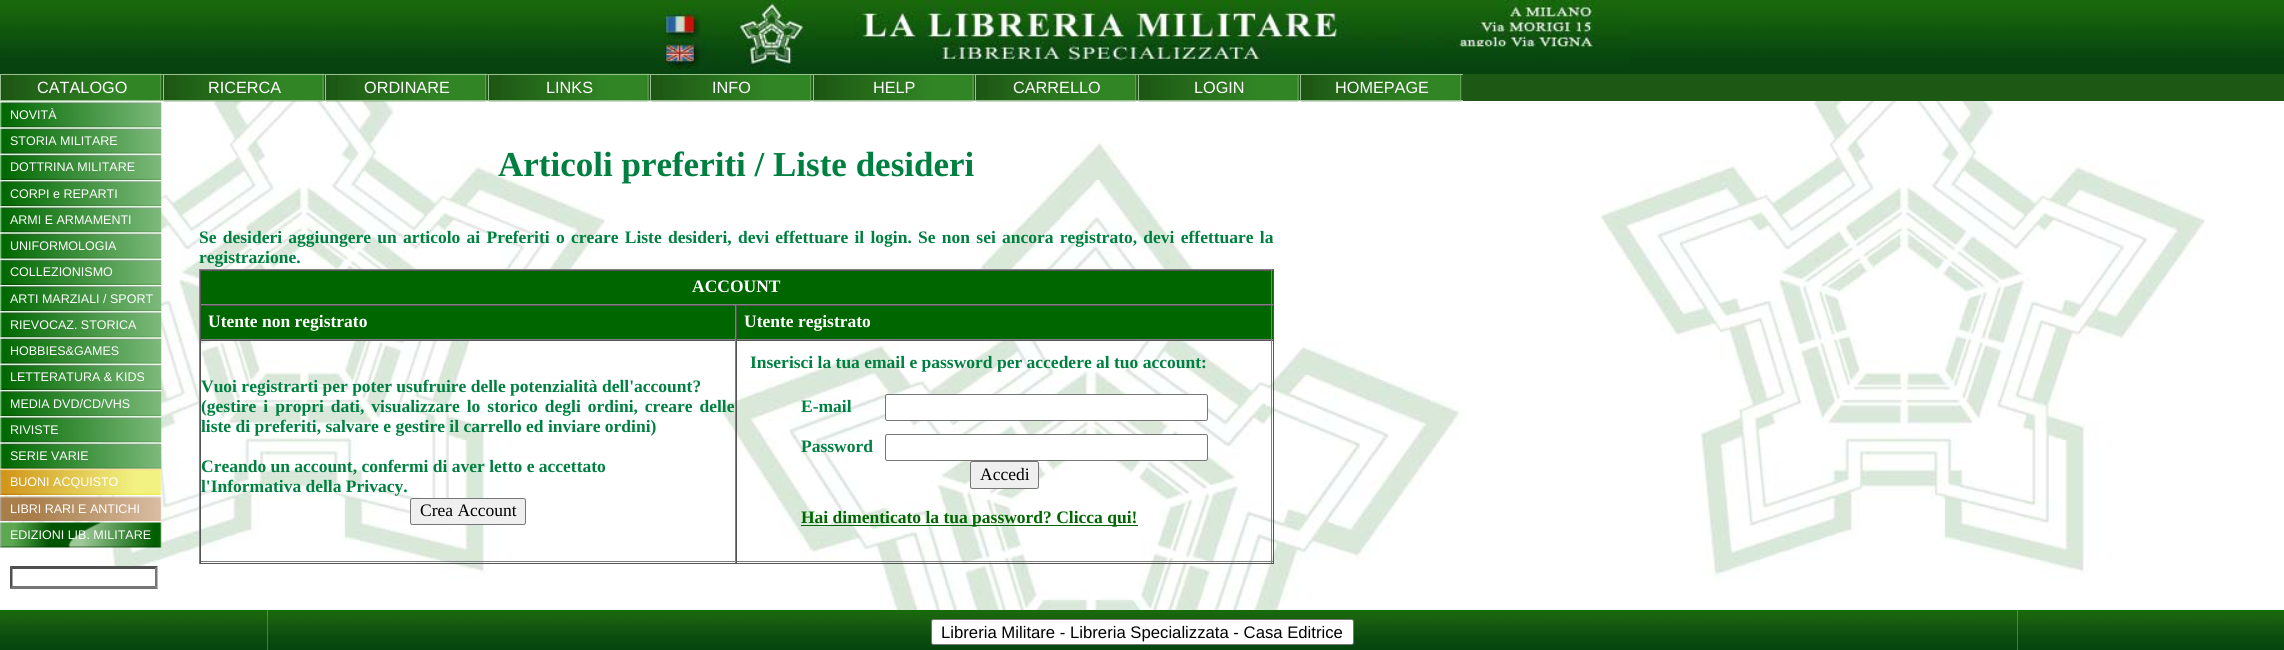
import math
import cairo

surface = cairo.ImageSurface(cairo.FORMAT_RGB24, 2284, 650)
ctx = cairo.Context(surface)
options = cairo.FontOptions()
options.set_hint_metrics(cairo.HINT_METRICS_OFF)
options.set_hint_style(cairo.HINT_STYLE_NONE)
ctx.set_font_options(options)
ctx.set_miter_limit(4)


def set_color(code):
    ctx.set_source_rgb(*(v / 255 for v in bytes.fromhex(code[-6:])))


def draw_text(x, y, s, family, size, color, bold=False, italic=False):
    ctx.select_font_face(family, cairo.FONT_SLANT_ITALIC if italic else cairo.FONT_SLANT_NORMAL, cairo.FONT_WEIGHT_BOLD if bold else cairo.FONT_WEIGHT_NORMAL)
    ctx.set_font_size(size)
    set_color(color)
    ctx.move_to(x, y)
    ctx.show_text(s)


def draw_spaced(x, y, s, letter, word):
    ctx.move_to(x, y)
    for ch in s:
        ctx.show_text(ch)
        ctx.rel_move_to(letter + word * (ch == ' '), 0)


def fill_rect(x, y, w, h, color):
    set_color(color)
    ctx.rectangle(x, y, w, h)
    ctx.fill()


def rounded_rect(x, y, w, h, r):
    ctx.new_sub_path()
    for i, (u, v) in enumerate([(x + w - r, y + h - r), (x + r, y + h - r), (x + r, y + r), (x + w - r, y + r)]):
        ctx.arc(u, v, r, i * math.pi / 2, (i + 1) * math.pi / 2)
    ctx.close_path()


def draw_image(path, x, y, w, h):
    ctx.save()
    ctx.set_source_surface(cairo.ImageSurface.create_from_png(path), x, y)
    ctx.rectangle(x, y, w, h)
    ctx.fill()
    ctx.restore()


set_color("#ffffff")
ctx.paint()
draw_image("assets/img1.png", 0, 101, 2205, 549)
fill_rect(0, 58, 2284, 16, "#07430f")
draw_image("assets/img2.png", 0, 0, 2284, 58)
fill_rect(1, 74, 2283, 27, "#1e5815")
draw_image("assets/img8.png", 651, 73, 161, 29)
draw_image("assets/img9.png", 813, 73, 161, 29)
draw_image("assets/img8.png", 976, 73, 161, 29)
draw_image("assets/img10.png", 1138, 73, 161, 29)
draw_image("assets/img4.png", 1301, 73, 161, 29)
draw_image("assets/img3.png", 655, 0, 975, 74)
draw_image("assets/img4.png", 1, 73, 161, 29)
fill_rect(0, 74, 163, 1, "#98c191")
fill_rect(0, 100, 163, 1, "#98c191")
fill_rect(0, 74, 1, 27, "#98c191")
draw_text(37, 93, "CATALOGO", "Liberation Sans", 16.25, "#ffffff")
draw_image("assets/img5.png", 163, 73, 161, 29)
fill_rect(163, 74, 162, 1, "#98c191")
fill_rect(163, 100, 162, 1, "#98c191")
fill_rect(163, 74, 1, 27, "#98c191")
draw_text(208, 93, "RICERCA", "Liberation Sans", 16.25, "#ffffff")
draw_image("assets/img6.png", 326, 73, 161, 29)
fill_rect(325, 74, 163, 1, "#98c191")
fill_rect(325, 100, 163, 1, "#98c191")
fill_rect(325, 74, 1, 27, "#98c191")
draw_text(364, 93, "ORDINARE", "Liberation Sans", 16.25, "#ffffff")
draw_image("assets/img7.png", 488, 73, 161, 29)
fill_rect(488, 74, 162, 1, "#98c191")
fill_rect(488, 100, 162, 1, "#98c191")
fill_rect(488, 74, 1, 27, "#98c191")
draw_text(546, 93, "LINKS", "Liberation Sans", 16.25, "#ffffff")
fill_rect(650, 74, 163, 1, "#98c191")
fill_rect(650, 100, 163, 1, "#98c191")
fill_rect(650, 74, 1, 27, "#98c191")
draw_text(712, 93, "INFO", "Liberation Sans", 16.25, "#ffffff")
fill_rect(813, 74, 162, 1, "#98c191")
fill_rect(813, 100, 162, 1, "#98c191")
fill_rect(813, 74, 1, 27, "#98c191")
draw_text(873, 93, "HELP", "Liberation Sans", 16.25, "#ffffff")
fill_rect(975, 74, 163, 1, "#98c191")
fill_rect(975, 100, 163, 1, "#98c191")
fill_rect(975, 74, 1, 27, "#98c191")
draw_text(1013, 93, "CARRELLO", "Liberation Sans", 16.25, "#ffffff")
fill_rect(1138, 74, 162, 1, "#98c191")
fill_rect(1138, 100, 162, 1, "#98c191")
fill_rect(1138, 74, 1, 27, "#98c191")
draw_text(1194, 93, "LOGIN", "Liberation Sans", 16.25, "#ffffff")
fill_rect(1300, 74, 163, 1, "#98c191")
fill_rect(1300, 100, 163, 1, "#98c191")
fill_rect(1300, 74, 1, 27, "#98c191")
draw_text(1335, 93, "HOMEPAGE", "Liberation Sans", 16.25, "#ffffff")
draw_image("assets/img11.png", 0, 101, 162, 27)
draw_text(10, 119, "NOVITÀ", "Liberation Sans", 12.5, "#ffffff")
draw_image("assets/img12.png", 0, 127, 162, 27)
draw_text(10, 145, "STORIA MILITARE", "Liberation Sans", 12.5, "#ffffff")
draw_image("assets/img13.png", 0, 153, 162, 27)
draw_text(10, 171, "DOTTRINA MILITARE", "Liberation Sans", 12.5, "#ffffff")
draw_image("assets/img14.png", 0, 180, 162, 27)
draw_text(10, 198, "CORPI e REPARTI", "Liberation Sans", 12.5, "#ffffff")
draw_image("assets/img15.png", 0, 206, 162, 27)
draw_text(10, 224, "ARMI E ARMAMENTI", "Liberation Sans", 12.5, "#ffffff")
draw_image("assets/img16.png", 0, 232, 162, 27)
draw_text(10, 250, "UNIFORMOLOGIA", "Liberation Sans", 12.5, "#ffffff")
draw_image("assets/img17.png", 0, 258, 162, 27)
draw_text(10, 276, "COLLEZIONISMO", "Liberation Sans", 12.5, "#ffffff")
draw_image("assets/img18.png", 0, 285, 162, 27)
draw_text(10, 303, "ARTI MARZIALI / SPORT", "Liberation Sans", 12.5, "#ffffff")
draw_image("assets/img19.png", 0, 311, 162, 27)
draw_text(10, 329, "RIEVOCAZ. STORICA", "Liberation Sans", 12.5, "#ffffff")
draw_image("assets/img20.png", 0, 337, 162, 27)
draw_text(10, 355, "HOBBIES&GAMES", "Liberation Sans", 12.5, "#ffffff")
draw_image("assets/img21.png", 0, 363, 162, 27)
draw_text(10, 381, "LETTERATURA & KIDS", "Liberation Sans", 12.5, "#ffffff")
draw_image("assets/img22.png", 0, 390, 162, 27)
draw_text(10, 408, "MEDIA DVD/CD/VHS", "Liberation Sans", 12.5, "#ffffff")
draw_image("assets/img23.png", 0, 416, 162, 27)
draw_text(10, 434, "RIVISTE", "Liberation Sans", 12.5, "#ffffff")
draw_image("assets/img24.png", 0, 442, 162, 27)
draw_text(10, 460, "SERIE VARIE", "Liberation Sans", 12.5, "#ffffff")
draw_image("assets/img25.png", 0, 468, 162, 27)
draw_text(10, 486, "BUONI ACQUISTO", "Liberation Sans", 12.5, "#ffffff")
draw_image("assets/img26.png", 0, 495, 162, 27)
draw_text(10, 513, "LIBRI RARI E ANTICHI", "Liberation Sans", 12.5, "#ffffff")
draw_image("assets/img27.png", 0, 521, 162, 27)
draw_text(10, 539, "EDIZIONI LIB. MILITARE", "Liberation Sans", 12.5, "#ffffff")
fill_rect(109, 566, 49, 14, "#ffffff")
set_color("#4f4f4f")
ctx.new_path()
ctx.move_to(10, 566)
ctx.line_to(158, 566)
ctx.line_to(155, 569)
ctx.line_to(12, 569)
ctx.close_path()
ctx.fill()
set_color("#767676")
ctx.new_path()
ctx.move_to(157.5, 566)
ctx.line_to(157.5, 589)
ctx.line_to(155, 586)
ctx.line_to(155, 569)
ctx.close_path()
ctx.fill()
ctx.new_path()
ctx.move_to(158, 589)
ctx.line_to(10, 589)
ctx.line_to(12, 586)
ctx.line_to(155, 586)
ctx.close_path()
ctx.fill()
set_color("#4f4f4f")
ctx.new_path()
ctx.move_to(10, 589)
ctx.line_to(10, 566)
ctx.line_to(12.5, 569)
ctx.line_to(12.5, 586)
ctx.close_path()
ctx.fill()
draw_text(498, 176, "Articoli preferiti / Liste desideri", "Liberation Serif", 35, "#008040", bold=True)
ctx.set_font_size(17.5)
draw_spaced(199, 243, "Se desideri aggiungere un articolo ai Preferiti o creare Liste desideri, devi effettuare il login. Se non sei ancora registrato, devi effettuare la", 0, 1.9)
draw_text(199, 263, "registrazione.", "Liberation Serif", 17.5, "#008040", bold=True)
fill_rect(199, 269, 1075, 1, "#808080")
fill_rect(1273, 269, 1, 295, "#555555")
fill_rect(199, 563, 1075, 1, "#555555")
fill_rect(199, 269, 1, 295, "#808080")
fill_rect(201, 271, 1072, 33, "#006600")
fill_rect(200, 270, 1073, 1, "#555555")
fill_rect(1271, 270, 1, 35, "#808080")
fill_rect(200, 304, 1073, 1, "#808080")
fill_rect(200, 270, 1, 35, "#555555")
draw_text(692, 292, "ACCOUNT", "Liberation Serif", 17.5, "#ffffff", bold=True)
fill_rect(201, 306, 534, 33, "#006600")
fill_rect(200, 305, 1073, 1, "#555555")
fill_rect(735, 305, 1, 35, "#808080")
fill_rect(200, 339, 536, 1, "#808080")
fill_rect(200, 305, 1, 35, "#555555")
draw_text(208, 327, "Utente non registrato", "Liberation Serif", 17.5, "#ffffff", bold=True)
fill_rect(737, 306, 536, 33, "#006600")
fill_rect(1271, 305, 1, 35, "#808080")
fill_rect(736, 339, 537, 1, "#808080")
fill_rect(736, 305, 1, 35, "#555555")
draw_text(744, 327, "Utente registrato", "Liberation Serif", 17.5, "#ffffff", bold=True)
fill_rect(200, 340, 1073, 1, "#555555")
fill_rect(735, 340, 1, 223, "#808080")
fill_rect(200, 561, 536, 1, "#808080")
fill_rect(200, 340, 1, 223, "#555555")
draw_text(201, 392, "Vuoi registrarti per poter usufruire delle potenzialità dell'account?", "Liberation Serif", 17.5, "#008040", bold=True)
draw_spaced(201, 412, "(gestire i propri dati, visualizzare lo storico degli ordini, creare delle", 0, 2.6)
draw_text(201, 432, "liste di preferiti, salvare e gestire il carrello ed inviare ordini)", "Liberation Serif", 17.5, "#008040", bold=True)
draw_text(201, 472, "Creando un account, confermi di aver letto e accettato", "Liberation Serif", 17.5, "#008040", bold=True)
draw_text(201, 492, "l'Informativa della Privacy.", "Liberation Serif", 17.5, "#008040", bold=True)
set_color("#efefef")
rounded_rect(410.5, 498.5, 115, 26, 2)
ctx.fill_preserve()
set_color("#767676")
ctx.set_line_width(1)
ctx.stroke()
draw_text(420, 516, "Crea Account", "Liberation Serif", 17.5, "#000000")
fill_rect(1271, 340, 1, 223, "#808080")
fill_rect(736, 561, 537, 1, "#808080")
fill_rect(736, 340, 1, 223, "#555555")
draw_text(750, 368, "Inserisci la tua email e password per accedere al tuo account:", "Liberation Serif", 17.5, "#008040", bold=True)
draw_text(801, 412, "E-mail", "Liberation Serif", 17.5, "#008040", bold=True)
set_color("#ffffff")
rounded_rect(885.5, 394.5, 322, 26, 2)
ctx.fill_preserve()
set_color("#767676")
ctx.stroke()
draw_text(801, 452, "Password", "Liberation Serif", 17.5, "#008040", bold=True)
set_color("#ffffff")
rounded_rect(885.5, 434.5, 322, 26, 2)
ctx.fill_preserve()
set_color("#767676")
ctx.stroke()
set_color("#efefef")
rounded_rect(970.5, 461.5, 68, 27, 2)
ctx.fill_preserve()
set_color("#767676")
ctx.stroke()
draw_text(980, 480, "Accedi", "Liberation Serif", 17.5, "#000000")
fill_rect(801, 525, 337, 1, "#006600")
draw_text(801, 523, "Hai dimenticato la tua password? Clicca qui!", "Liberation Serif", 17.5, "#006600", bold=True)
draw_image("assets/img28.png", 0, 610, 268, 40)
draw_image("assets/img29.png", 267, 610, 1751, 40)
set_color("#ffffff")
rounded_rect(931.5, 619.5, 422, 25, 2)
ctx.fill_preserve()
set_color("#767676")
ctx.stroke()
draw_text(941, 638, "Libreria Militare - Libreria Specializzata - Casa Editrice", "Liberation Sans", 16.7, "#000000")
draw_image("assets/img30.png", 2017, 610, 267, 40)
surface.write_to_png("output.png")
